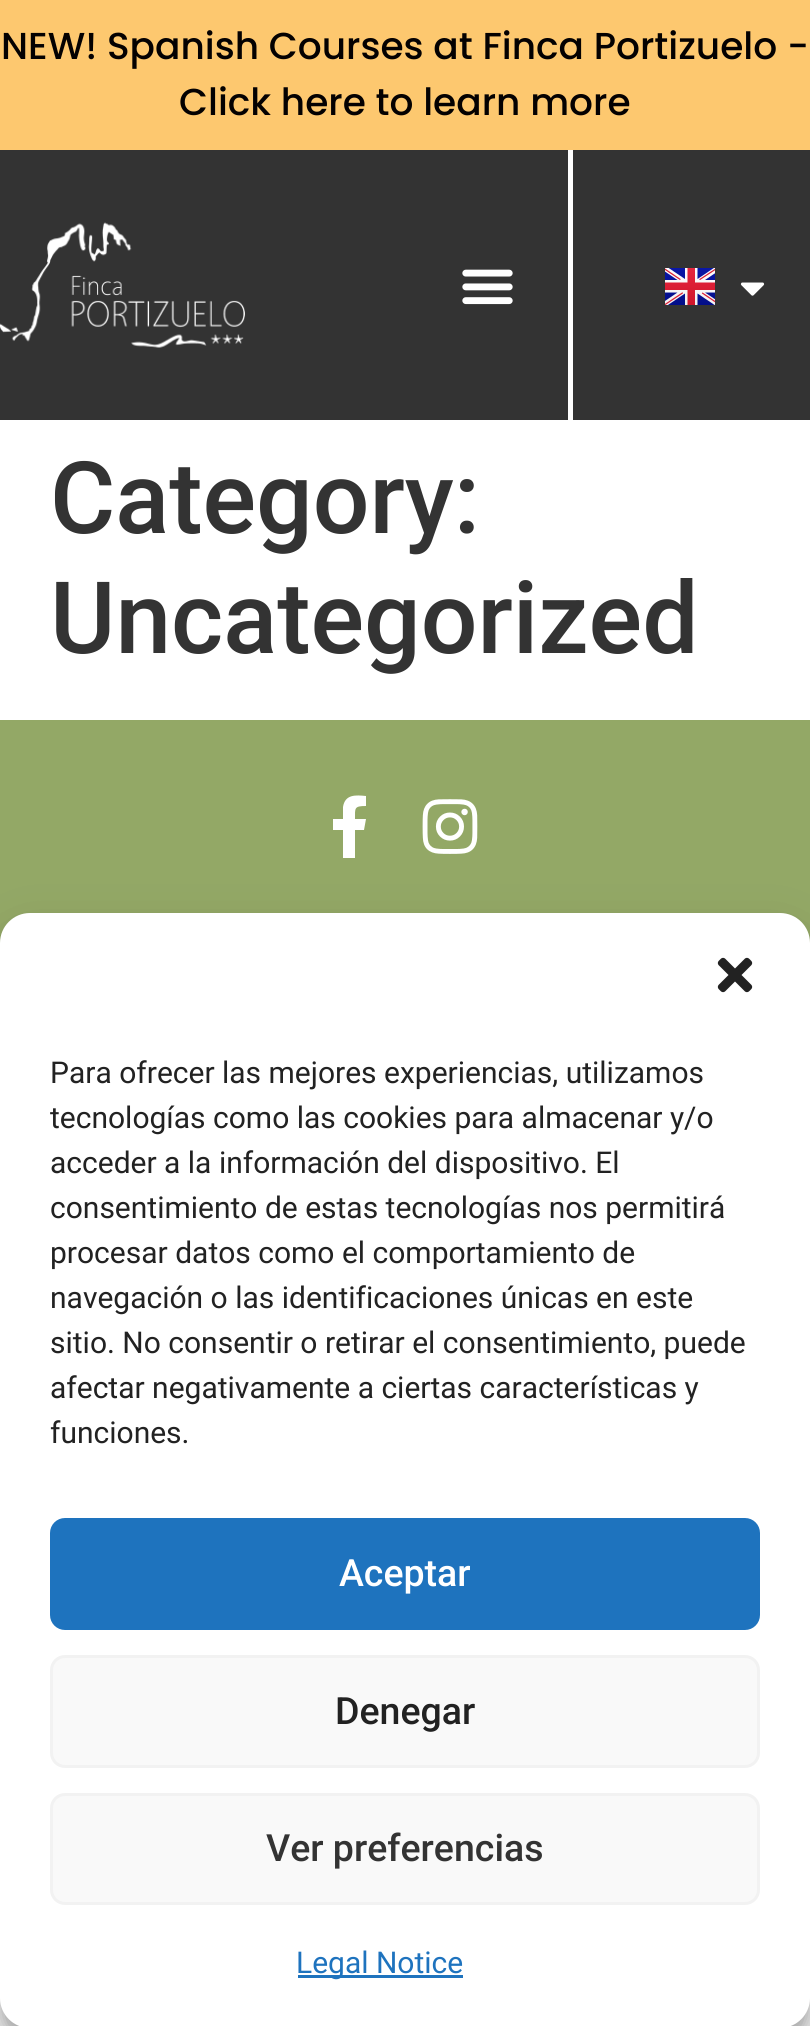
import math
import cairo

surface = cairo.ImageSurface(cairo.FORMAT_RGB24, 810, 2026)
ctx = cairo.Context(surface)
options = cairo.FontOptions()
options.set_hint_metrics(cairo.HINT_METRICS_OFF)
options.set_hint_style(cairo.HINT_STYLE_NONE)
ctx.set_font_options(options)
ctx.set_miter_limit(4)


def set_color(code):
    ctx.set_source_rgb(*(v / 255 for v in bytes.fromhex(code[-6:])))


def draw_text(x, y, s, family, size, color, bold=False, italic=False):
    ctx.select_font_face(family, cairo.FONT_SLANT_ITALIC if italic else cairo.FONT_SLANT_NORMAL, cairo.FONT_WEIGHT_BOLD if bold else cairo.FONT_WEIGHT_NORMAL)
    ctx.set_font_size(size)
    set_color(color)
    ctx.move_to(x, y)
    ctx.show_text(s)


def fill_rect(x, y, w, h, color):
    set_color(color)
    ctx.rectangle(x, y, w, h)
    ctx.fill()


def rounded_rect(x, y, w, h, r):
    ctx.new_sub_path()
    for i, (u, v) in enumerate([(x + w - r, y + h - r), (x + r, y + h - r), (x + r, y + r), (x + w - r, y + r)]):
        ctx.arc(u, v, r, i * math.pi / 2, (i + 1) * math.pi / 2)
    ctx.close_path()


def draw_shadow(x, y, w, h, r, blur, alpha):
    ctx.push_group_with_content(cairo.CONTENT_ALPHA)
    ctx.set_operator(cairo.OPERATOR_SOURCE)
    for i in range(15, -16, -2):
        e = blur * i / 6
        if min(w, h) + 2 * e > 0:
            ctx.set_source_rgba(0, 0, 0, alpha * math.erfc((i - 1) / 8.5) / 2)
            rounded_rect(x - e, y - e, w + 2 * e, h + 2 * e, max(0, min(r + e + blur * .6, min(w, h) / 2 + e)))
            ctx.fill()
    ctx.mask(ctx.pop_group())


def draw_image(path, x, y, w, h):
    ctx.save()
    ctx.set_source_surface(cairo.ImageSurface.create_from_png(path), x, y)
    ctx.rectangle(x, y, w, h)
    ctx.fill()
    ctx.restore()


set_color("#ffffff")
ctx.paint()
fill_rect(0, 0, 810, 150, "#fdc86f")
draw_text(1, 59, "NEW! Spanish Courses at Finca Portizuelo -", "Poppins Medium", 37.5, "#040101")
draw_text(179, 115, "Click here to learn more", "Poppins Medium", 37.5, "#040101")
fill_rect(0, 150, 810, 270, "#333333")
draw_image("assets/img1.png", 0, 222, 245, 126)
draw_image("assets/img2.png", 462, 269, 51, 36)
fill_rect(568, 150, 5, 270, "#ffffff")
draw_image("assets/img3.png", 665, 268, 50, 37)
draw_image("assets/img4.png", 740, 282, 25, 14)
draw_text(50, 533, "Category:", "Roboto Medium", 100, "#333333")
draw_text(50, 653, "Uncategorized", "Roboto Medium", 100, "#333333")
fill_rect(0, 720, 810, 223, "#93a866")
set_color("#ffffff")
ctx.new_path()
ctx.move_to(364, 830)
ctx.line_to(355, 830)
ctx.line_to(355, 858)
ctx.line_to(343, 858)
ctx.line_to(343, 830)
ctx.line_to(333, 830)
ctx.line_to(333, 819)
ctx.line_to(343, 819)
ctx.line_to(343, 807)
ctx.curve_to(345, 794, 356, 795, 366, 796)
ctx.line_to(366, 806)
ctx.curve_to(354, 806, 355, 808, 355, 819)
ctx.line_to(366, 819)
ctx.close_path()
ctx.fill()
draw_image("assets/img5.png", 422, 799, 56, 55)
set_color("#000000")
draw_shadow(0, 928, 810, 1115, 30, 7.5, 0.23)
draw_shadow(0, 938, 810, 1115, 30, 25, 0.19)
set_color("#ffffff")
rounded_rect(0, 913, 810, 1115, 30)
ctx.fill()
draw_image("assets/img6.png", 717, 957, 36, 36)
draw_text(50, 1083, "Para ofrecer las mejores experiencias, utilizamos", "Roboto", 30, "#222222")
draw_text(50, 1128, "tecnologías como las cookies para almacenar y/o", "Roboto", 30, "#222222")
draw_text(50, 1173, "acceder a la información del dispositivo. El", "Roboto", 30, "#222222")
draw_text(50, 1218, "consentimiento de estas tecnologías nos permitirá", "Roboto", 30, "#222222")
draw_text(50, 1263, "procesar datos como el comportamiento de", "Roboto", 30, "#222222")
draw_text(50, 1308, "navegación o las identificaciones únicas en este", "Roboto", 30, "#222222")
draw_text(50, 1353, "sitio. No consentir o retirar el consentimiento, puede", "Roboto", 30, "#222222")
draw_text(50, 1398, "afectar negativamente a ciertas características y", "Roboto", 30, "#222222")
draw_text(50, 1443, "funciones.", "Roboto", 30, "#222222")
set_color("#1e73be")
rounded_rect(51.5, 1519.5, 707, 109, 13.5)
ctx.fill_preserve()
ctx.set_line_width(3)
ctx.stroke()
draw_text(339, 1586, "Aceptar", "Roboto Medium", 37.5, "#ffffff")
set_color("#f9f9f9")
rounded_rect(51.5, 1656.5, 707, 110, 13.5)
ctx.fill_preserve()
set_color("#f2f2f2")
ctx.stroke()
draw_text(335, 1724, "Denegar", "Roboto Medium", 37.5, "#222222")
set_color("#f9f9f9")
rounded_rect(51.5, 1794.5, 707, 109, 13.5)
ctx.fill_preserve()
set_color("#f2f2f2")
ctx.stroke()
draw_text(266, 1861, "Ver preferencias", "Roboto Medium", 37.5, "#333333")
fill_rect(298, 1975, 165, 3, "#1e73be")
draw_text(296, 1973, "Legal Notice", "Roboto", 30, "#1e73be")
surface.write_to_png("output.png")
